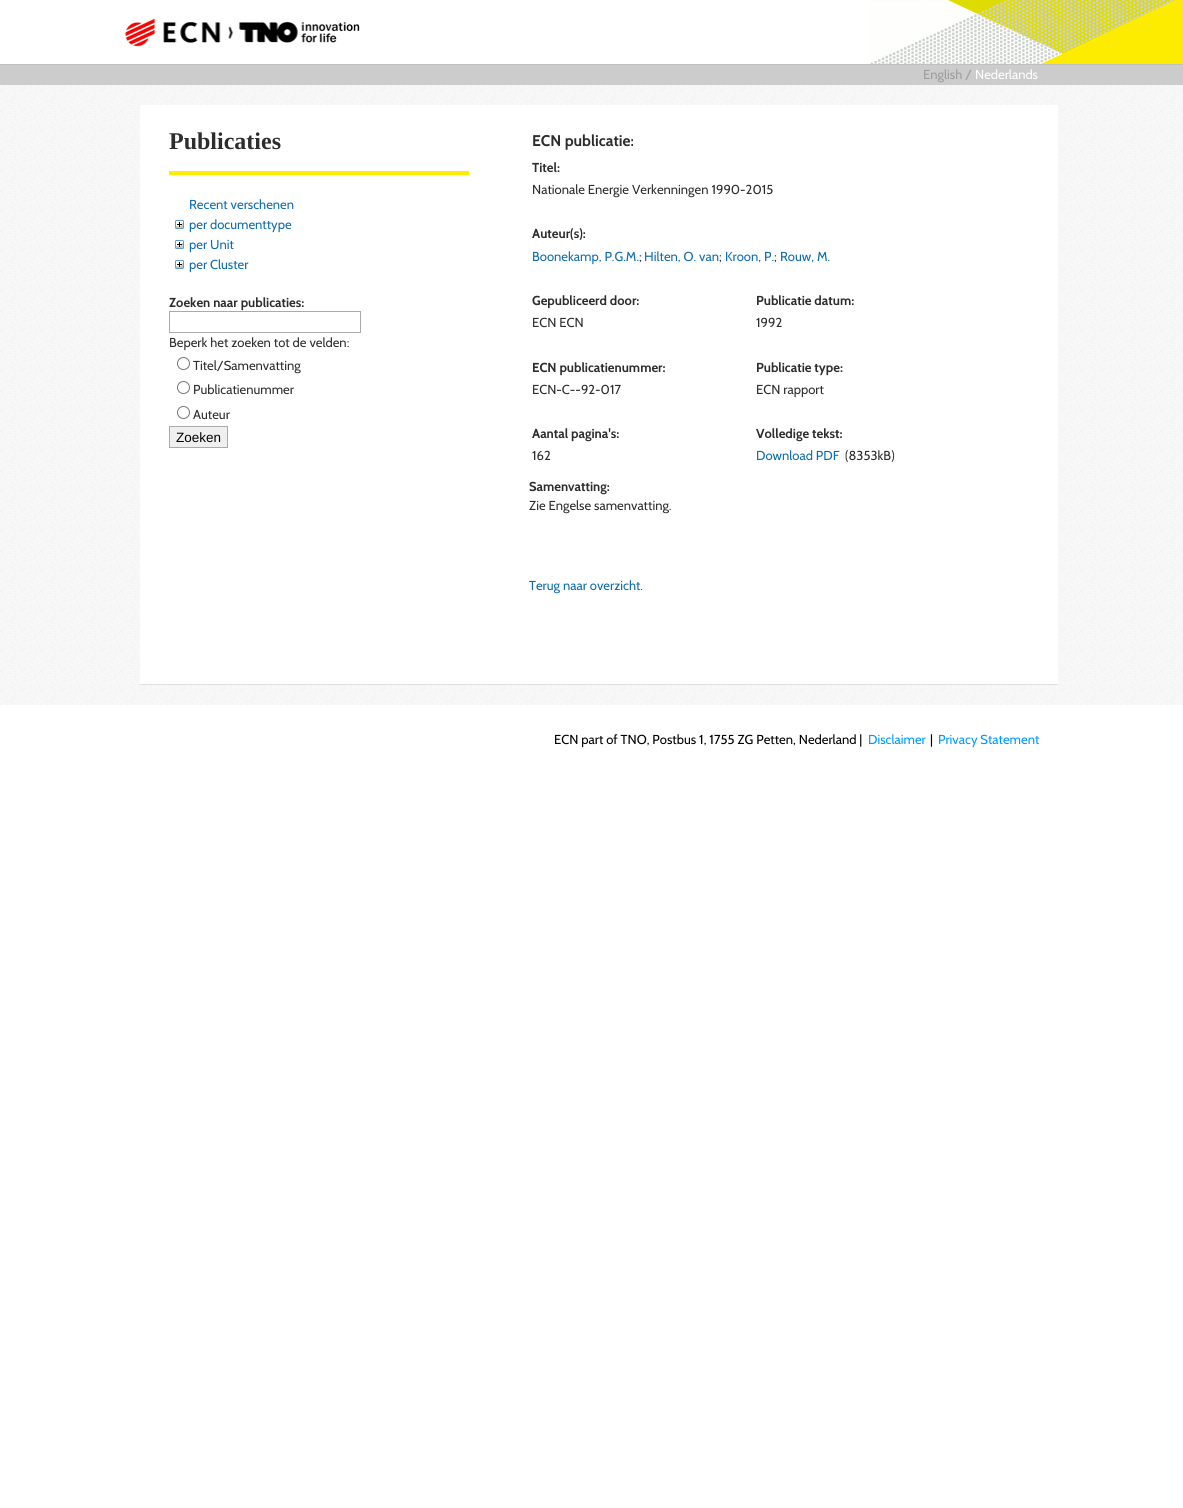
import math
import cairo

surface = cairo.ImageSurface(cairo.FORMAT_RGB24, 1183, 1508)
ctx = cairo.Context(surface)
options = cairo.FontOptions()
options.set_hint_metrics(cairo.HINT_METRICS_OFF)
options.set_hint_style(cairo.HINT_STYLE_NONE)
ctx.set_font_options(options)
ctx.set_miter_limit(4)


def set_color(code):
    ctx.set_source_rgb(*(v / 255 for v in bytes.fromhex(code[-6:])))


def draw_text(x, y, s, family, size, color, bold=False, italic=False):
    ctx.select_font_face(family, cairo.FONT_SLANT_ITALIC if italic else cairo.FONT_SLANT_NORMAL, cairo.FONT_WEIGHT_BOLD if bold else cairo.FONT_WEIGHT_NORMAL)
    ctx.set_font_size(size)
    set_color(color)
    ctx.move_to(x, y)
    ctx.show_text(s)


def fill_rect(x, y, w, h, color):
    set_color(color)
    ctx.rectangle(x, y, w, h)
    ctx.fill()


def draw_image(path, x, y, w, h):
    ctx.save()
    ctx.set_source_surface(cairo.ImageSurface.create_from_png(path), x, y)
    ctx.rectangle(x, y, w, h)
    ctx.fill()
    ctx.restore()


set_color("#ffffff")
ctx.paint()
fill_rect(0, 65, 1183, 20, "#cccccc")
fill_rect(0, 64, 1183, 1, "#c0c0c0")
draw_image("assets/img1.png", 870, 0, 313, 64)
draw_image("assets/img2.png", 125, 18, 235, 29)
draw_text(923, 79, "English /", "Cabin", 13, "#9c9c9c")
draw_text(975, 79, "Nederlands", "Cabin", 13, "#ffffff")
draw_image("assets/img3.png", 0, 85, 1183, 620)
fill_rect(140, 105, 918, 579, "#ffffff")
fill_rect(140, 684, 918, 1, "#dfdfdf")
fill_rect(169, 171, 300, 4, "#ffec00")
draw_text(169, 149, "Publicaties", "Liberation Serif", 24, "#2e2d2d", bold=True)
draw_text(189, 209, "Recent verschenen", "Cabin", 13, "#0f6cac")
draw_image("assets/img4.png", 175, 220, 9, 9)
draw_text(189, 229, "per documenttype", "Cabin", 13, "#0f6cac")
draw_image("assets/img4.png", 175, 240, 9, 9)
draw_text(189, 249, "per Unit", "Cabin", 13, "#0f6cac")
draw_image("assets/img4.png", 175, 260, 9, 9)
draw_text(189, 269, "per Cluster", "Cabin", 13, "#0f6cac")
draw_text(169, 307, "Zoeken naar publicaties:", "Cabin", 13, "#2e2d2d", bold=True)
ctx.rectangle(169.5, 311.5, 191, 21)
set_color("#aaaaaa")
ctx.set_line_width(1)
ctx.stroke()
draw_text(169, 347, "Beperk het zoeken tot de velden:", "Cabin", 13, "#2e2d2d")
ctx.new_path()
ctx.arc(183.5, 363.5, 6, 0, 2 * math.pi)
set_color("#767676")
ctx.stroke()
draw_text(193, 370, "Titel/Samenvatting", "Cabin", 13, "#2e2d2d")
ctx.new_path()
ctx.arc(183.5, 387.5, 6, 0, 2 * math.pi)
set_color("#767676")
ctx.stroke()
draw_text(193, 394, "Publicatienummer", "Cabin", 13, "#2e2d2d")
ctx.new_path()
ctx.arc(183.5, 412.5, 6, 0, 2 * math.pi)
set_color("#767676")
ctx.stroke()
draw_text(193, 419, "Auteur", "Cabin", 13, "#2e2d2d")
set_color("#efefef")
ctx.rectangle(169.5, 426.5, 58, 21)
ctx.fill_preserve()
set_color("#aaaaaa")
ctx.stroke()
draw_text(176, 442, "Zoeken", "Liberation Sans", 13.5, "#000000")
draw_text(532, 146, "ECN publicatie:", "Cabin", 15.5, "#2e2d2d", bold=True)
draw_text(532, 172, "Titel:", "Cabin", 13, "#2e2d2d", bold=True)
draw_text(532, 194, "Nationale Energie Verkenningen 1990-2015", "Cabin", 13, "#2e2d2d")
draw_text(532, 238, "Auteur(s):", "Cabin", 13, "#2e2d2d", bold=True)
draw_text(532, 261, "Boonekamp, P.G.M.", "Cabin", 13, "#0f6cac")
draw_text(639, 261, ";", "Cabin", 13, "#2e2d2d")
draw_text(644, 261, "Hilten, O. van", "Cabin", 13, "#0f6cac")
draw_text(719, 261, ";", "Cabin", 13, "#2e2d2d")
draw_text(725, 261, "Kroon, P.", "Cabin", 13, "#0f6cac")
draw_text(774, 261, ";", "Cabin", 13, "#2e2d2d")
draw_text(780, 261, "Rouw, M.", "Cabin", 13, "#0f6cac")
draw_text(532, 305, "Gepubliceerd door:", "Cabin", 13, "#2e2d2d", bold=True)
draw_text(756, 305, "Publicatie datum:", "Cabin", 13, "#2e2d2d", bold=True)
draw_text(532, 327, "ECN ECN", "Cabin", 13, "#2e2d2d")
draw_text(756, 327, "1992", "Cabin", 13, "#2e2d2d")
draw_text(532, 372, "ECN publicatienummer:", "Cabin", 13, "#2e2d2d", bold=True)
draw_text(756, 372, "Publicatie type:", "Cabin", 13, "#2e2d2d", bold=True)
draw_text(532, 394, "ECN-C--92-017", "Cabin", 13, "#2e2d2d")
draw_text(756, 394, "ECN rapport", "Cabin", 13, "#2e2d2d")
draw_text(532, 438, "Aantal pagina's:", "Cabin", 13, "#2e2d2d", bold=True)
draw_text(756, 438, "Volledige tekst:", "Cabin", 13, "#2e2d2d", bold=True)
draw_text(532, 460, "162", "Cabin", 13, "#2e2d2d")
draw_text(756, 460, "Download PDF", "Cabin", 13, "#0f6cac")
draw_text(845, 460, "(8353kB)", "Cabin", 13, "#2e2d2d")
draw_text(529, 491, "Samenvatting:", "Cabin", 13, "#2e2d2d", bold=True)
draw_text(529, 510, "Zie Engelse samenvatting.", "Cabin", 13, "#2e2d2d")
draw_text(529, 590, "Terug naar overzicht.", "Cabin", 13, "#0f6cac")
draw_text(554, 744, "ECN part of TNO, Postbus 1, 1755 ZG Petten, Nederland |", "Cabin", 13, "#000000")
draw_text(868, 744, "Disclaimer", "Cabin", 13, "#0099ff")
draw_text(930, 744, "|", "Cabin", 13, "#000000")
draw_text(938, 744, "Privacy Statement", "Cabin", 13, "#0099ff")
surface.write_to_png("output.png")
